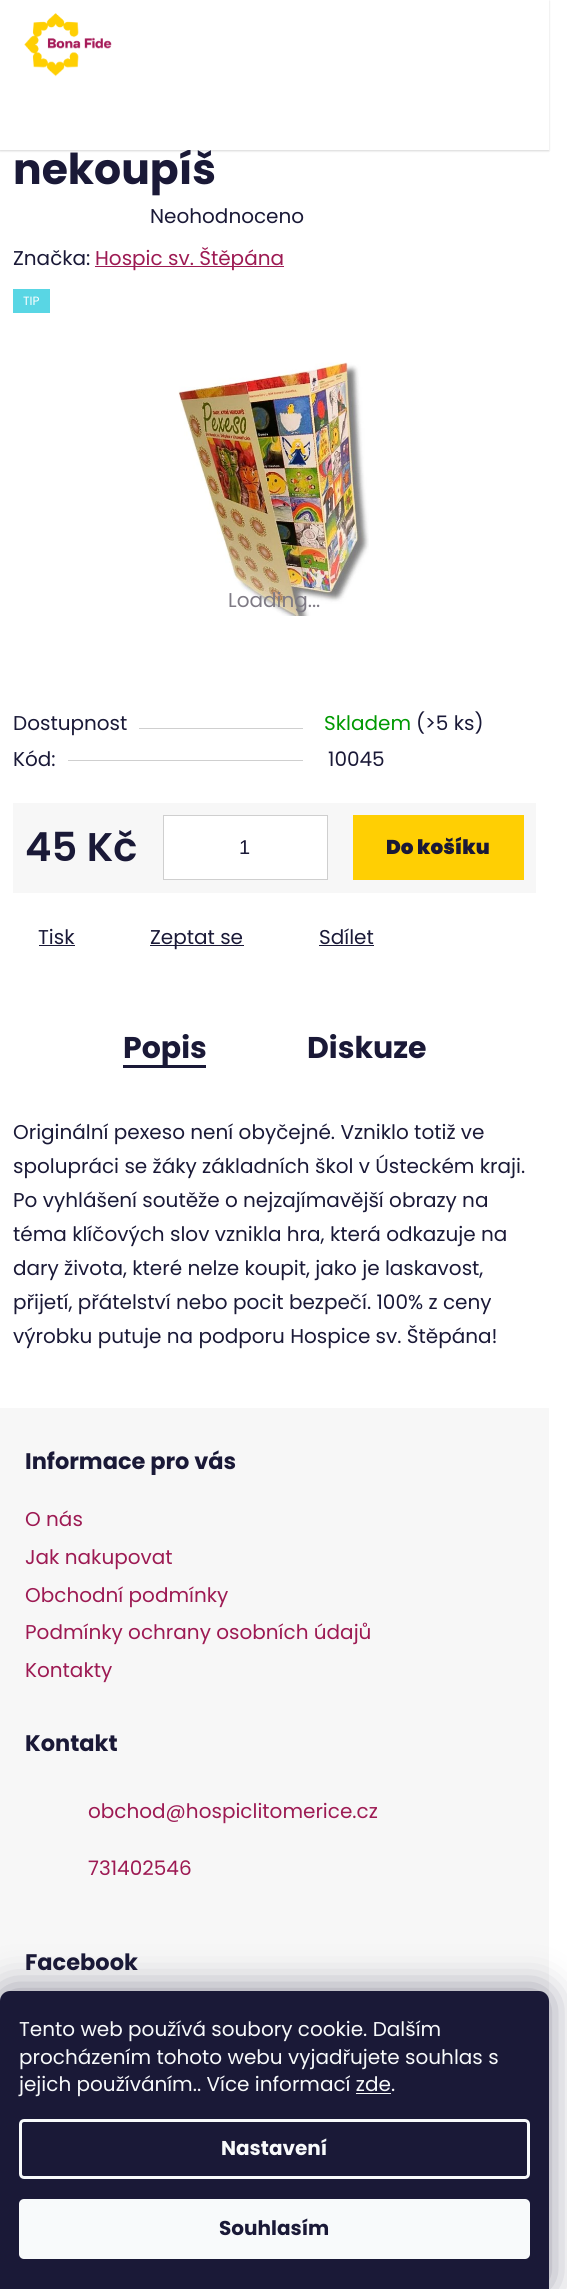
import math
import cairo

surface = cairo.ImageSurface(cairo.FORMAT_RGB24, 567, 2289)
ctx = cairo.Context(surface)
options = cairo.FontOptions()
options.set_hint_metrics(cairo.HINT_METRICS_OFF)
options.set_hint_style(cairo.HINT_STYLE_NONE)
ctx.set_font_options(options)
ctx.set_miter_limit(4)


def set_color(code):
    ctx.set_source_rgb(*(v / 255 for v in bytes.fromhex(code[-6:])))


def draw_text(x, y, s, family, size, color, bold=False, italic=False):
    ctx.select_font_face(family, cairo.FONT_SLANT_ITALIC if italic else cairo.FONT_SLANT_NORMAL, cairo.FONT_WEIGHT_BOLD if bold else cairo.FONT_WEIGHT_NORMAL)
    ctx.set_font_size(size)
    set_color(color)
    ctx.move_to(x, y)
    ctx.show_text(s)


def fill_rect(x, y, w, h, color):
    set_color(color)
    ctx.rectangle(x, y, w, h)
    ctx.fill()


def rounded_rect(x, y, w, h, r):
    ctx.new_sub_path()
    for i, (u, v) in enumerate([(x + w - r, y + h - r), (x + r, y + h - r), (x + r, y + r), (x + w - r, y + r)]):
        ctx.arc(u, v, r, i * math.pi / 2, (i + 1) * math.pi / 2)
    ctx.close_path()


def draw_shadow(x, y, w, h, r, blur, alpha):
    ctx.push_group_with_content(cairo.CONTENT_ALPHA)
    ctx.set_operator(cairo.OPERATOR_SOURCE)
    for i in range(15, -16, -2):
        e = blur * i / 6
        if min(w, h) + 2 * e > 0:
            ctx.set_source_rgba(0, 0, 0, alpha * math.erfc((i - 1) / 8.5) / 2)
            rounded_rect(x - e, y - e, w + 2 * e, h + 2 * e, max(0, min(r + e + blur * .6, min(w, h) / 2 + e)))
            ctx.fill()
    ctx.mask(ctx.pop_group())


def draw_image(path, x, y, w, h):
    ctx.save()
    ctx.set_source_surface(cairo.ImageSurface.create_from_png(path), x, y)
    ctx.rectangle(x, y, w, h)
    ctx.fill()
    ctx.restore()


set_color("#ffffff")
ctx.paint()
set_color("#000000")
draw_shadow(0, 1, 549, 150, 0, 1, 0.16)
draw_text(13, 184, "nekoupíš", "Poppins", 42.5, "#1a1937", bold=True)
fill_rect(0, 0, 549, 150, "#ffffff")
draw_image("assets/img1.png", 24, 13, 88, 64)
draw_text(150, 223, "Neohodnoceno", "Poppins", 20, "#1a1937")
draw_text(13, 265, "Značka:", "Poppins", 20, "#1a1937")
fill_rect(95, 266, 189, 1, "#9d1a53")
draw_text(95, 265, "Hospic sv. Štěpána", "Poppins", 20, "#9d1a53")
fill_rect(13, 289, 37, 24, "#59d6e4")
draw_text(23, 305, "TIP", "Poppins", 12, "#ffffff")
draw_image("assets/img2.png", 178, 362, 191, 254)
draw_text(228, 607, "Loading...", "Poppins", 20, "#7e7a84")
draw_text(13, 730, "Dostupnost", "Poppins", 20, "#1a1937")
fill_rect(139, 728, 164, 1, "#cfcfcf")
draw_text(324, 730, "Skladem", "Poppins", 20, "#009901")
draw_text(416, 730, "(>5 ks)", "Poppins", 20, "#1a1937")
draw_text(13, 766, "Kód:", "Poppins", 20, "#1a1937")
fill_rect(68, 760, 235, 1, "#cfcfcf")
draw_text(328, 766, "10045", "Poppins", 20, "#1a1937")
fill_rect(13, 803, 523, 90, "#f7f7f7")
draw_text(25, 861, "45 Kč", "Poppins SemiBold", 40, "#1a1937")
set_color("#ffffff")
ctx.rectangle(163.5, 815.5, 164, 64)
ctx.fill_preserve()
set_color("#cfcfcf")
ctx.set_line_width(1)
ctx.stroke()
draw_text(239, 854, "1", "Liberation Sans", 20, "#1a1937")
fill_rect(353, 815, 171, 65, "#ffcf03")
draw_text(386, 854, "Do košíku", "Poppins Black", 20, "#1a1937")
draw_text(38, 944, "Tisk", "Poppins", 20, "#1a1937")
fill_rect(39, 945, 36, 1, "#1a1937")
fill_rect(150, 945, 94, 1, "#1a1937")
draw_text(150, 944, "Zeptat se", "Poppins", 20, "#1a1937")
draw_text(319, 944, "Sdílet", "Poppins", 20, "#1a1937")
fill_rect(319, 945, 55, 1, "#1a1937")
fill_rect(123, 1065, 83, 3, "#1a1937")
draw_text(123, 1058, "Popis", "Poppins", 30, "#1a1937", bold=True)
draw_text(307, 1058, "Diskuze", "Poppins", 30, "#1a1937", bold=True)
draw_text(13, 1139, "Originální pexeso není obyčejné. Vzniklo totiž ve", "Poppins", 20, "#1a1937")
draw_text(13, 1173, "spolupráci se žáky základních škol v Ústeckém kraji.", "Poppins", 20, "#1a1937")
draw_text(13, 1207, "Po vyhlášení soutěže o nejzajímavější obrazy na", "Poppins", 20, "#1a1937")
draw_text(13, 1241, "téma klíčových slov vznikla hra, která odkazuje na", "Poppins", 20, "#1a1937")
draw_text(13, 1275, "dary života, které nelze koupit, jako je laskavost,", "Poppins", 20, "#1a1937")
draw_text(13, 1309, "přijetí, přátelství nebo pocit bezpečí. 100% z ceny", "Poppins", 20, "#1a1937")
draw_text(13, 1343, "výrobku putuje na podporu Hospice sv. Štěpána!", "Poppins", 20, "#1a1937")
fill_rect(0, 1408, 549, 593, "#f7f7f7")
draw_text(25, 1469, "Informace pro vás", "Poppins", 22.5, "#1a1937", bold=True)
draw_text(25, 1526, "O nás", "Poppins", 20, "#9d1a53")
draw_text(25, 1564, "Jak nakupovat", "Poppins", 20, "#9d1a53")
draw_text(25, 1602, "Obchodní podmínky", "Poppins", 20, "#9d1a53")
draw_text(25, 1639, "Podmínky ochrany osobních údajů", "Poppins", 20, "#9d1a53")
draw_text(25, 1677, "Kontakty", "Poppins", 20, "#9d1a53")
draw_text(25, 1751, "Kontakt", "Poppins", 22.5, "#1a1937", bold=True)
draw_text(88, 1818, "obchod@hospiclitomerice.cz", "Poppins", 20, "#9d1a53")
draw_text(88, 1875, "731402546", "Poppins", 20, "#9d1a53")
draw_text(25, 1970, "Facebook", "Poppins", 22.5, "#1a1937", bold=True)
set_color("#1b1939")
draw_shadow(0, 1991, 549, 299, 10, 19, 0.5)
set_color("#1a1937")
ctx.new_path()
ctx.move_to(10, 1991)
ctx.line_to(539, 1991)
ctx.curve_to(544.5, 1991, 549, 1995.5, 549, 2001)
ctx.line_to(549, 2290)
ctx.line_to(0, 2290)
ctx.line_to(0, 2001)
ctx.curve_to(0, 1995.5, 4.5, 1991, 10, 1991)
ctx.close_path()
ctx.fill()
draw_text(19, 2036, "Tento web používá soubory cookie. Dalším", "Poppins", 20, "#f8fafb")
draw_text(19, 2064, "procházením tohoto webu vyjadřujete souhlas s", "Poppins", 20, "#f8fafb")
draw_text(19, 2091, "jejich používáním.. Více informací zde.", "Poppins", 20, "#f8fafb")
fill_rect(356, 2093, 35, 1, "#f8fafb")
rounded_rect(20.5, 2120.5, 508, 57, 3.5)
ctx.set_line_width(3)
ctx.stroke()
draw_text(221, 2155, "Nastavení", "Poppins", 20, "#f8fafb", bold=True)
rounded_rect(19, 2199, 511, 60, 5)
ctx.fill()
draw_text(219, 2235, "Souhlasím", "Poppins", 20, "#1a1937", bold=True)
surface.write_to_png("output.png")
